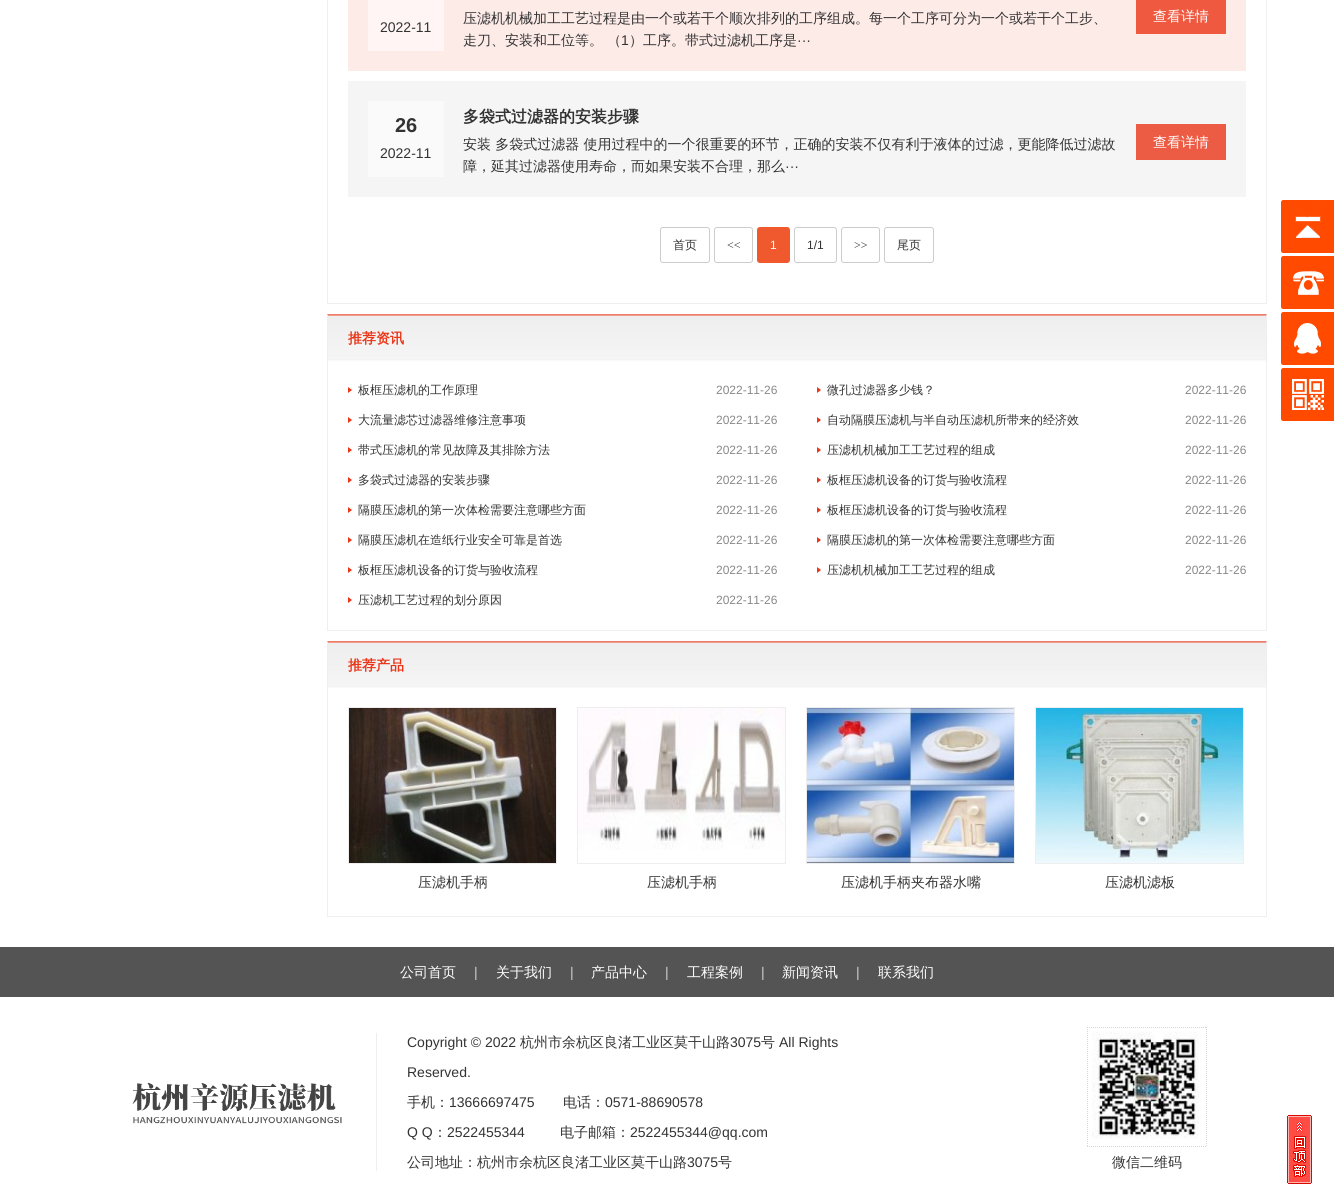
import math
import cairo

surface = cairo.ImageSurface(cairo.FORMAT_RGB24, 1334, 1204)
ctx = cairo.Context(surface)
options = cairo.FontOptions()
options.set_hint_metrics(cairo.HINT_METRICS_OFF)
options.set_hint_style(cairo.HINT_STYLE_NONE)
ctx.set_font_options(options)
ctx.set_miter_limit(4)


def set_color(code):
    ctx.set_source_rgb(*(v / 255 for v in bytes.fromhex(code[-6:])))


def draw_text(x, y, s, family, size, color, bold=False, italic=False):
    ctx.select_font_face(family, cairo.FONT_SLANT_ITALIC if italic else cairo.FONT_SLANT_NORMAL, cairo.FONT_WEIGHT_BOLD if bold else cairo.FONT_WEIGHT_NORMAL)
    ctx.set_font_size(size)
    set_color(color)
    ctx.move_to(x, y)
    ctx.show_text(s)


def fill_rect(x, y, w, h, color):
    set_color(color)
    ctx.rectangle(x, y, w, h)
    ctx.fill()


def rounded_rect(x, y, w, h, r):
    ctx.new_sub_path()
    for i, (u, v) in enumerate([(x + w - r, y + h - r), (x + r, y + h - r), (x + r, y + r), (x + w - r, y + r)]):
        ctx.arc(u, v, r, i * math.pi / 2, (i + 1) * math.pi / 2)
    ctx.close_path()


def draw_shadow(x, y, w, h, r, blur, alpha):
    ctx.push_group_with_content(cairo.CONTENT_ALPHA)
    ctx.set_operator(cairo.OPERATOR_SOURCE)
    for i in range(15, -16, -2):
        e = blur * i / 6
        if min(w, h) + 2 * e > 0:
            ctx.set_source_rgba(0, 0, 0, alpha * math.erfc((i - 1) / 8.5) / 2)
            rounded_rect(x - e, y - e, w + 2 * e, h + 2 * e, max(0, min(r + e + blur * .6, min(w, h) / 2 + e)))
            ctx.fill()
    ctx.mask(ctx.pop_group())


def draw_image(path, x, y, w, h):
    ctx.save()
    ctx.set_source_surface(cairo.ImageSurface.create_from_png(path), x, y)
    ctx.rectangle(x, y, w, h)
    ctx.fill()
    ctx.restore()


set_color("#ffffff")
ctx.paint()
ctx.rectangle(327.5, -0.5, 939, 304)
set_color("#efefef")
ctx.set_line_width(1)
ctx.stroke()
fill_rect(348, 0, 898, 71, "#fdebe8")
fill_rect(368, 0, 76, 51, "#fef5f4")
draw_text(380, 32, "2022-11", "Liberation Sans", 14, "#333333")
draw_text(463, 23, "压滤机机械加工工艺过程是由一个或若干个顺次排列的工序组成。每一个工序可分为一个或若干个工步、", "WenQuanYi Zen Hei Medium", 14, "#333333")
draw_text(463, 45, "走刀、安装和工位等。 （", "WenQuanYi Zen Hei Medium", 14, "#333333")
draw_text(621, 45, "1", "Liberation Sans", 14, "#333333")
draw_text(629, 45, "）工序。带式过滤机工序是", "WenQuanYi Zen Hei Medium", 14, "#333333")
draw_text(797, 45, "···", "Liberation Sans", 14, "#333333")
fill_rect(1136, 0, 90, 34, "#ee5940")
draw_text(1153, 21, "查看详情", "WenQuanYi Zen Hei Medium", 14, "#ffffff")
fill_rect(348, 81, 898, 116, "#f5f5f5")
fill_rect(368, 101, 76, 76, "#fafafa")
draw_text(395, 132, "26", "Liberation Sans", 20, "#333333", bold=True)
draw_text(380, 158, "2022-11", "Liberation Sans", 14, "#333333")
draw_text(463, 122, "多袋式过滤器的安装步骤", "WenQuanYi Zen Hei", 16, "#333333", bold=True)
fill_rect(1136, 124, 90, 36, "#ec5b43")
draw_text(1153, 147, "查看详情", "WenQuanYi Zen Hei Medium", 14, "#ffffff")
draw_text(463, 149, "安装 多袋式过滤器 使用过程中的一个很重要的环节，正确的安装不仅有利于液体的过滤，更能降低过滤故", "WenQuanYi Zen Hei Medium", 14, "#333333")
draw_text(463, 171, "障，延其过滤器使用寿命，而如果安装不合理，那么", "WenQuanYi Zen Hei Medium", 14, "#333333")
draw_text(785, 171, "···", "Liberation Sans", 14, "#333333")
rounded_rect(660.5, 227.5, 49, 35, 2.5)
set_color("#cccccc")
ctx.stroke()
draw_text(673, 249, "首页", "WenQuanYi Zen Hei Medium", 12, "#333333")
rounded_rect(714.5, 227.5, 38, 35, 2.5)
set_color("#cccccc")
ctx.stroke()
draw_text(727, 249, "<<", "Liberation Serif", 12, "#333333")
set_color("#f0592d")
rounded_rect(757.5, 227.5, 32, 35, 2.5)
ctx.fill_preserve()
ctx.stroke()
draw_text(770, 249, "1", "Liberation Sans", 12, "#ffffff")
rounded_rect(794.5, 227.5, 42, 35, 2.5)
set_color("#cccccc")
ctx.stroke()
draw_text(807, 249, "1/1", "Liberation Sans", 12, "#333333")
rounded_rect(841.5, 227.5, 38, 35, 2.5)
set_color("#cccccc")
ctx.stroke()
draw_text(854, 249, ">>", "Liberation Serif", 12, "#333333")
rounded_rect(884.5, 227.5, 49, 35, 2.5)
set_color("#cccccc")
ctx.stroke()
draw_text(897, 249, "尾页", "WenQuanYi Zen Hei Medium", 12, "#333333")
set_color("#f0725c")
ctx.new_path()
ctx.move_to(327, 314)
ctx.line_to(1267, 314)
ctx.line_to(1266, 316)
ctx.line_to(328, 316)
ctx.close_path()
ctx.fill()
set_color("#efefef")
ctx.new_path()
ctx.move_to(1267, 314)
ctx.line_to(1267, 631)
ctx.line_to(1266, 630)
ctx.line_to(1266, 316)
ctx.close_path()
ctx.fill()
fill_rect(327, 630, 940, 1, "#efefef")
ctx.new_path()
ctx.move_to(327, 631)
ctx.line_to(327, 314)
ctx.line_to(328, 316)
ctx.line_to(328, 630)
ctx.close_path()
ctx.fill()
set_color("#eeeeee")
draw_shadow(328, 316, 938, 44, 0, 1, 1)
gradient = cairo.LinearGradient(797, 360, 797, 316)
gradient.add_color_stop_rgba(0, 0.961, 0.961, 0.961, 1)
gradient.add_color_stop_rgba(1, 0.933, 0.933, 0.933, 1)
ctx.set_source(gradient)
ctx.rectangle(328, 316, 938, 43)
ctx.fill()
draw_text(348, 343, "推荐资讯", "WenQuanYi Zen Hei", 14, "#ea3516", bold=True)
ctx.new_path()
ctx.move_to(348, 393)
ctx.line_to(348, 387)
ctx.line_to(352, 390)
ctx.close_path()
ctx.fill()
draw_text(358, 394, "板框压滤机的工作原理", "WenQuanYi Zen Hei Medium", 12, "#333333")
draw_text(716, 394, "2022-11-26", "Liberation Sans", 12, "#888888")
set_color("#ea3516")
ctx.new_path()
ctx.move_to(817, 393)
ctx.line_to(817, 387)
ctx.line_to(821, 390)
ctx.close_path()
ctx.fill()
draw_text(827, 394, "微孔过滤器多少钱？", "WenQuanYi Zen Hei Medium", 12, "#333333")
draw_text(1185, 394, "2022-11-26", "Liberation Sans", 12, "#888888")
set_color("#ea3516")
ctx.new_path()
ctx.move_to(348, 423)
ctx.line_to(348, 417)
ctx.line_to(352, 420)
ctx.close_path()
ctx.fill()
draw_text(358, 424, "大流量滤芯过滤器维修注意事项", "WenQuanYi Zen Hei Medium", 12, "#333333")
draw_text(716, 424, "2022-11-26", "Liberation Sans", 12, "#888888")
set_color("#ea3516")
ctx.new_path()
ctx.move_to(817, 423)
ctx.line_to(817, 417)
ctx.line_to(821, 420)
ctx.close_path()
ctx.fill()
draw_text(827, 424, "自动隔膜压滤机与半自动压滤机所带来的经济效", "WenQuanYi Zen Hei Medium", 12, "#333333")
draw_text(1185, 424, "2022-11-26", "Liberation Sans", 12, "#888888")
set_color("#ea3516")
ctx.new_path()
ctx.move_to(348, 453)
ctx.line_to(348, 447)
ctx.line_to(352, 450)
ctx.close_path()
ctx.fill()
draw_text(358, 454, "带式压滤机的常见故障及其排除方法", "WenQuanYi Zen Hei Medium", 12, "#333333")
draw_text(716, 454, "2022-11-26", "Liberation Sans", 12, "#888888")
set_color("#ea3516")
ctx.new_path()
ctx.move_to(817, 453)
ctx.line_to(817, 447)
ctx.line_to(821, 450)
ctx.close_path()
ctx.fill()
draw_text(827, 454, "压滤机机械加工工艺过程的组成", "WenQuanYi Zen Hei Medium", 12, "#333333")
draw_text(1185, 454, "2022-11-26", "Liberation Sans", 12, "#888888")
set_color("#ea3516")
ctx.new_path()
ctx.move_to(348, 483)
ctx.line_to(348, 477)
ctx.line_to(352, 480)
ctx.close_path()
ctx.fill()
draw_text(358, 484, "多袋式过滤器的安装步骤", "WenQuanYi Zen Hei Medium", 12, "#333333")
draw_text(716, 484, "2022-11-26", "Liberation Sans", 12, "#888888")
set_color("#ea3516")
ctx.new_path()
ctx.move_to(817, 483)
ctx.line_to(817, 477)
ctx.line_to(821, 480)
ctx.close_path()
ctx.fill()
draw_text(827, 484, "板框压滤机设备的订货与验收流程", "WenQuanYi Zen Hei Medium", 12, "#333333")
draw_text(1185, 484, "2022-11-26", "Liberation Sans", 12, "#888888")
set_color("#ea3516")
ctx.new_path()
ctx.move_to(348, 513)
ctx.line_to(348, 507)
ctx.line_to(352, 510)
ctx.close_path()
ctx.fill()
draw_text(358, 514, "隔膜压滤机的第一次体检需要注意哪些方面", "WenQuanYi Zen Hei Medium", 12, "#333333")
draw_text(716, 514, "2022-11-26", "Liberation Sans", 12, "#888888")
set_color("#ea3516")
ctx.new_path()
ctx.move_to(817, 513)
ctx.line_to(817, 507)
ctx.line_to(821, 510)
ctx.close_path()
ctx.fill()
draw_text(827, 514, "板框压滤机设备的订货与验收流程", "WenQuanYi Zen Hei Medium", 12, "#333333")
draw_text(1185, 514, "2022-11-26", "Liberation Sans", 12, "#888888")
set_color("#ea3516")
ctx.new_path()
ctx.move_to(348, 543)
ctx.line_to(348, 537)
ctx.line_to(352, 540)
ctx.close_path()
ctx.fill()
draw_text(358, 544, "隔膜压滤机在造纸行业安全可靠是首选", "WenQuanYi Zen Hei Medium", 12, "#333333")
draw_text(716, 544, "2022-11-26", "Liberation Sans", 12, "#888888")
set_color("#ea3516")
ctx.new_path()
ctx.move_to(817, 543)
ctx.line_to(817, 537)
ctx.line_to(821, 540)
ctx.close_path()
ctx.fill()
draw_text(827, 544, "隔膜压滤机的第一次体检需要注意哪些方面", "WenQuanYi Zen Hei Medium", 12, "#333333")
draw_text(1185, 544, "2022-11-26", "Liberation Sans", 12, "#888888")
set_color("#ea3516")
ctx.new_path()
ctx.move_to(348, 573)
ctx.line_to(348, 567)
ctx.line_to(352, 570)
ctx.close_path()
ctx.fill()
draw_text(358, 574, "板框压滤机设备的订货与验收流程", "WenQuanYi Zen Hei Medium", 12, "#333333")
draw_text(716, 574, "2022-11-26", "Liberation Sans", 12, "#888888")
set_color("#ea3516")
ctx.new_path()
ctx.move_to(817, 573)
ctx.line_to(817, 567)
ctx.line_to(821, 570)
ctx.close_path()
ctx.fill()
draw_text(827, 574, "压滤机机械加工工艺过程的组成", "WenQuanYi Zen Hei Medium", 12, "#333333")
draw_text(1185, 574, "2022-11-26", "Liberation Sans", 12, "#888888")
set_color("#ea3516")
ctx.new_path()
ctx.move_to(348, 603)
ctx.line_to(348, 597)
ctx.line_to(352, 600)
ctx.close_path()
ctx.fill()
draw_text(358, 604, "压滤机工艺过程的划分原因", "WenQuanYi Zen Hei Medium", 12, "#333333")
draw_text(716, 604, "2022-11-26", "Liberation Sans", 12, "#888888")
set_color("#f0725c")
ctx.new_path()
ctx.move_to(327, 641)
ctx.line_to(1267, 641)
ctx.line_to(1266, 643)
ctx.line_to(328, 643)
ctx.close_path()
ctx.fill()
set_color("#efefef")
ctx.new_path()
ctx.move_to(1267, 641)
ctx.line_to(1267, 917)
ctx.line_to(1266, 916)
ctx.line_to(1266, 643)
ctx.close_path()
ctx.fill()
fill_rect(327, 916, 940, 1, "#efefef")
ctx.new_path()
ctx.move_to(327, 917)
ctx.line_to(327, 641)
ctx.line_to(328, 643)
ctx.line_to(328, 916)
ctx.close_path()
ctx.fill()
set_color("#eeeeee")
draw_shadow(328, 643, 938, 44, 0, 1, 1)
gradient = cairo.LinearGradient(797, 687, 797, 643)
gradient.add_color_stop_rgba(0, 0.961, 0.961, 0.961, 1)
gradient.add_color_stop_rgba(1, 0.933, 0.933, 0.933, 1)
ctx.set_source(gradient)
ctx.rectangle(328, 643, 938, 43)
ctx.fill()
draw_text(348, 670, "推荐产品", "WenQuanYi Zen Hei", 14, "#ea3516", bold=True)
ctx.rectangle(348.5, 707.5, 208, 156)
set_color("#eeeeee")
ctx.stroke()
draw_image("assets/img1.png", 349, 708, 207, 155)
draw_text(418, 887, "压滤机手柄", "WenQuanYi Zen Hei Medium", 14, "#333333")
ctx.rectangle(577.5, 707.5, 208, 156)
set_color("#eeeeee")
ctx.stroke()
draw_image("assets/img2.png", 578, 708, 207, 142)
draw_text(647, 887, "压滤机手柄", "WenQuanYi Zen Hei Medium", 14, "#333333")
ctx.rectangle(806.5, 707.5, 208, 156)
set_color("#eeeeee")
ctx.stroke()
draw_image("assets/img3.png", 807, 708, 207, 155)
draw_text(841, 887, "压滤机手柄夹布器水嘴", "WenQuanYi Zen Hei Medium", 14, "#333333")
ctx.rectangle(1035.5, 707.5, 208, 156)
set_color("#eeeeee")
ctx.stroke()
draw_image("assets/img4.png", 1036, 708, 207, 155)
draw_text(1105, 887, "压滤机滤板", "WenQuanYi Zen Hei Medium", 14, "#333333")
set_color("#ff4a00")
rounded_rect(1281, 200, 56, 53, 3)
ctx.fill()
draw_image("assets/img5.png", 1281, 200, 44, 53)
rounded_rect(1281, 256, 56, 53, 3)
ctx.fill()
draw_image("assets/img6.png", 1281, 256, 43, 53)
rounded_rect(1281, 312, 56, 53, 3)
ctx.fill()
draw_image("assets/img7.png", 1281, 312, 40, 53)
rounded_rect(1281, 368, 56, 53, 3)
ctx.fill()
draw_image("assets/img8.png", 1281, 368, 43, 53)
fill_rect(0, 947, 1334, 50, "#545454")
draw_text(400, 977, "公司首页", "WenQuanYi Zen Hei Medium", 14, "#ffffff")
draw_text(474, 977, "|", "Liberation Sans", 14, "#cccccc")
draw_text(496, 977, "关于我们", "WenQuanYi Zen Hei Medium", 14, "#ffffff")
draw_text(570, 977, "|", "Liberation Sans", 14, "#cccccc")
draw_text(591, 977, "产品中心", "WenQuanYi Zen Hei Medium", 14, "#ffffff")
draw_text(665, 977, "|", "Liberation Sans", 14, "#cccccc")
draw_text(687, 977, "工程案例", "WenQuanYi Zen Hei Medium", 14, "#ffffff")
draw_text(761, 977, "|", "Liberation Sans", 14, "#cccccc")
draw_text(782, 977, "新闻资讯", "WenQuanYi Zen Hei Medium", 14, "#ffffff")
draw_text(856, 977, "|", "Liberation Sans", 14, "#cccccc")
draw_text(878, 977, "联系我们", "WenQuanYi Zen Hei Medium", 14, "#ffffff")
draw_image("assets/img9.png", 132, 1082, 210, 42)
fill_rect(376, 1033, 1, 138, "#eeeeee")
draw_text(407, 1047, "Copyright © 2022", "Liberation Sans", 14, "#333333")
draw_text(520, 1047, "杭州市余杭区良渚工业区莫干山路", "WenQuanYi Zen Hei Medium", 14, "#333333")
draw_text(730, 1047, "3075", "Liberation Sans", 14, "#333333")
draw_text(761, 1047, "号", "WenQuanYi Zen Hei Medium", 14, "#333333")
draw_text(779, 1047, "All Rights", "Liberation Sans", 14, "#333333")
draw_text(407, 1077, "Reserved.", "Liberation Sans", 14, "#333333")
draw_text(407, 1107, "手机：", "WenQuanYi Zen Hei Medium", 14, "#333333")
draw_text(449, 1107, "13666697475", "Liberation Sans", 14, "#333333")
draw_text(563, 1107, "电话：", "WenQuanYi Zen Hei Medium", 14, "#333333")
draw_text(605, 1107, "0571-88690578", "Liberation Sans", 14, "#333333")
draw_text(407, 1137, "Q Q", "Liberation Sans", 14, "#333333")
draw_text(433, 1137, "：", "WenQuanYi Zen Hei Medium", 14, "#333333")
draw_text(447, 1137, "2522455344", "Liberation Sans", 14, "#333333")
draw_text(560, 1137, "电子邮箱：", "WenQuanYi Zen Hei Medium", 14, "#333333")
draw_text(630, 1137, "2522455344@qq.com", "Liberation Sans", 14, "#333333")
draw_text(407, 1167, "公司地址：杭州市余杭区良渚工业区莫干山路", "WenQuanYi Zen Hei Medium", 14, "#333333")
draw_text(687, 1167, "3075", "Liberation Sans", 14, "#333333")
draw_text(718, 1167, "号", "WenQuanYi Zen Hei Medium", 14, "#333333")
ctx.new_path()
ctx.move_to(1087, 1027.5)
ctx.line_to(1207, 1027.5)
set_color("#d7d7d7")
ctx.set_dash([1, 1])
ctx.stroke()
ctx.new_path()
ctx.move_to(1087.5, 1027)
ctx.line_to(1087.5, 1147)
ctx.stroke()
draw_image("assets/img10.png", 1092, 1032, 107, 107)
ctx.new_path()
ctx.move_to(1206.5, 1027)
ctx.line_to(1206.5, 1147)
ctx.stroke()
ctx.new_path()
ctx.move_to(1087, 1146.5)
ctx.line_to(1207, 1146.5)
ctx.stroke()
draw_text(1112, 1167, "微信二维码", "WenQuanYi Zen Hei Medium", 14, "#333333")
draw_image("assets/img11.png", 1287, 1115, 25, 69)
surface.write_to_png("output.png")
